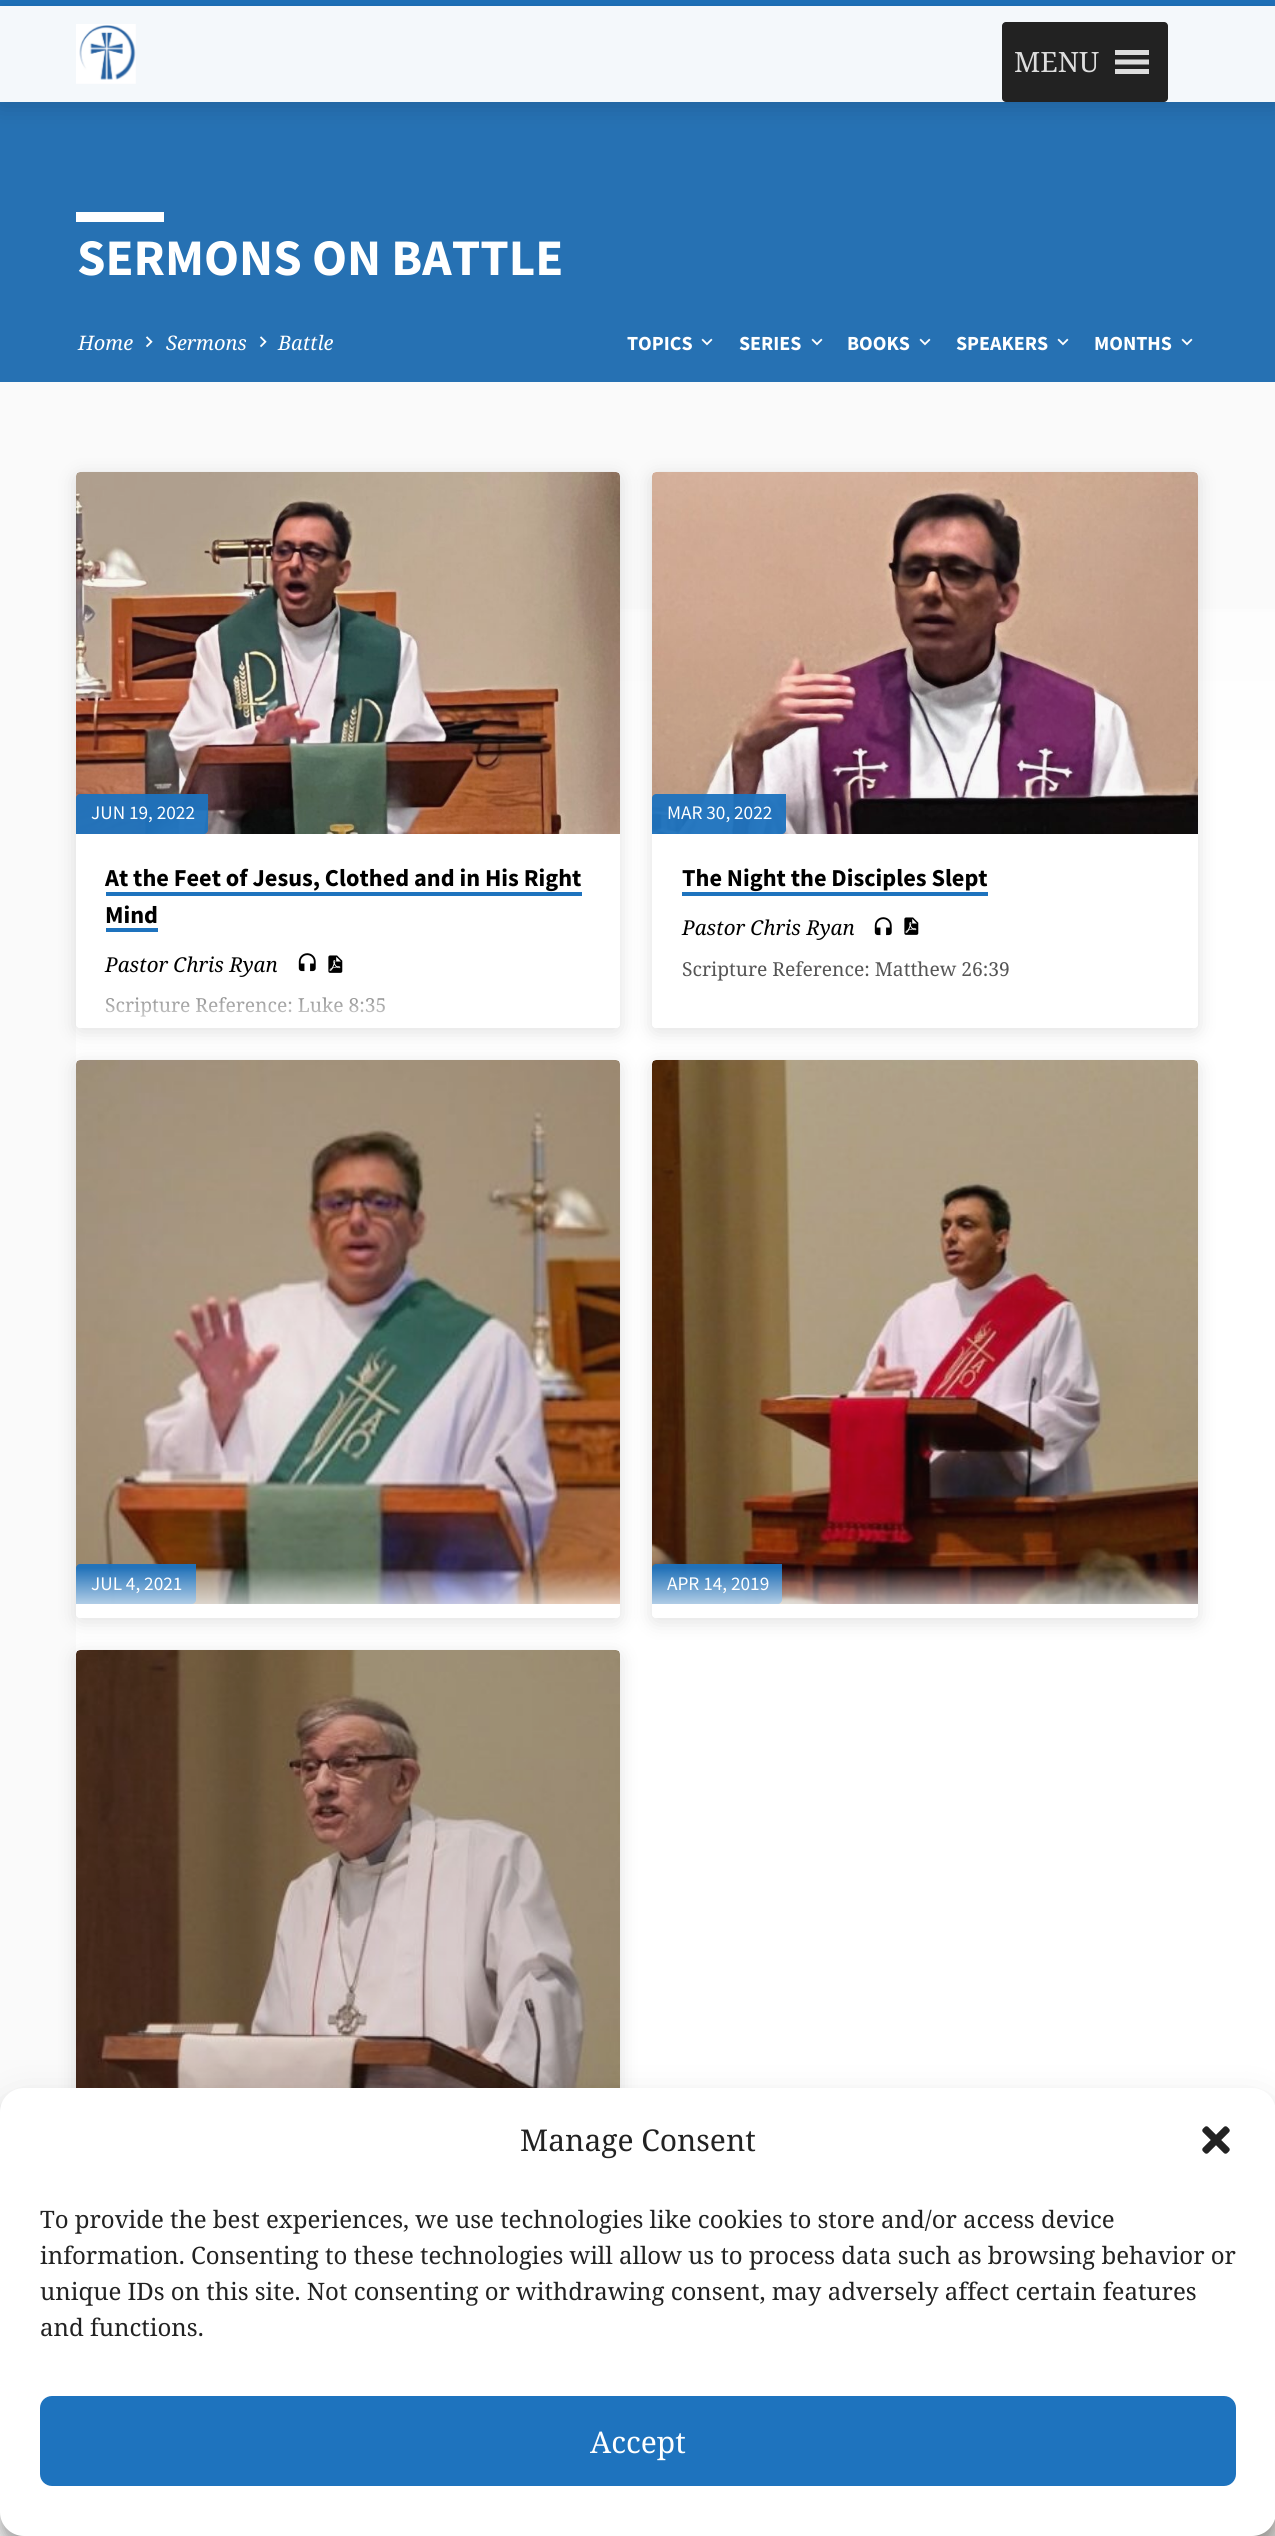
import math
import cairo

surface = cairo.ImageSurface(cairo.FORMAT_RGB24, 1275, 2536)
ctx = cairo.Context(surface)
options = cairo.FontOptions()
options.set_hint_metrics(cairo.HINT_METRICS_OFF)
options.set_hint_style(cairo.HINT_STYLE_NONE)
ctx.set_font_options(options)
ctx.set_miter_limit(4)


def set_color(code):
    ctx.set_source_rgb(*(v / 255 for v in bytes.fromhex(code[-6:])))


def draw_text(x, y, s, family, size, color, bold=False, italic=False):
    ctx.select_font_face(family, cairo.FONT_SLANT_ITALIC if italic else cairo.FONT_SLANT_NORMAL, cairo.FONT_WEIGHT_BOLD if bold else cairo.FONT_WEIGHT_NORMAL)
    ctx.set_font_size(size)
    set_color(color)
    ctx.move_to(x, y)
    ctx.show_text(s)


def fill_rect(x, y, w, h, color):
    set_color(color)
    ctx.rectangle(x, y, w, h)
    ctx.fill()


def rounded_rect(x, y, w, h, r):
    ctx.new_sub_path()
    for i, (u, v) in enumerate([(x + w - r, y + h - r), (x + r, y + h - r), (x + r, y + r), (x + w - r, y + r)]):
        ctx.arc(u, v, r, i * math.pi / 2, (i + 1) * math.pi / 2)
    ctx.close_path()


def draw_shadow(x, y, w, h, r, blur, alpha):
    ctx.push_group_with_content(cairo.CONTENT_ALPHA)
    ctx.set_operator(cairo.OPERATOR_SOURCE)
    for i in range(15, -16, -2):
        e = blur * i / 6
        if min(w, h) + 2 * e > 0:
            ctx.set_source_rgba(0, 0, 0, alpha * math.erfc((i - 1) / 8.5) / 2)
            rounded_rect(x - e, y - e, w + 2 * e, h + 2 * e, max(0, min(r + e + blur * .6, min(w, h) / 2 + e)))
            ctx.fill()
    ctx.mask(ctx.pop_group())


def draw_image(path, x, y, w, h):
    ctx.save()
    ctx.set_source_surface(cairo.ImageSurface.create_from_png(path), x, y)
    ctx.rectangle(x, y, w, h)
    ctx.fill()
    ctx.restore()


set_color("#fafafa")
ctx.paint()
fill_rect(0, 0, 1275, 6, "#1e73bd")
fill_rect(0, 6, 1275, 96, "#f4f8fb")
fill_rect(0, 102, 1275, 280, "#2671b3")
ctx.save()
ctx.set_fill_rule(cairo.FILL_RULE_EVEN_ODD)
ctx.new_path()
ctx.move_to(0, 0)
ctx.line_to(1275, 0)
ctx.line_to(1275, 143)
ctx.line_to(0, 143)
ctx.close_path()
ctx.move_to(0, 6)
ctx.line_to(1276, 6)
ctx.line_to(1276, 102)
ctx.line_to(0, 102)
ctx.close_path()
ctx.clip()
set_color("#000000")
draw_shadow(0, 10, 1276, 96, 0, 12, 0.14)
ctx.restore()
draw_image("assets/img1.png", 76, 24, 60, 60)
set_color("#222222")
rounded_rect(1002, 22, 166, 80, 4)
ctx.fill()
draw_text(1014, 72, "MENU", "Noto Serif", 28, "#dddddd")
ctx.new_path()
ctx.move_to(1115, 74)
ctx.line_to(1149, 74)
ctx.line_to(1149, 69)
ctx.line_to(1115, 69)
ctx.close_path()
ctx.move_to(1115, 50)
ctx.line_to(1115, 55)
ctx.line_to(1149, 55)
ctx.line_to(1149, 50)
ctx.close_path()
ctx.move_to(1115, 64.5)
ctx.line_to(1149, 64.5)
ctx.line_to(1149, 59.5)
ctx.line_to(1115, 59.5)
ctx.close_path()
ctx.fill()
fill_rect(76, 212, 88, 10, "#ffffff")
draw_text(77, 275, "SERMONS ON BATTLE", "Source Sans Pro", 51.25, "#ffffff", bold=True)
draw_text(78, 350, "Home", "Noto Serif", 20, "#ffffff", italic=True)
draw_image("assets/img2.png", 145, 336, 8, 12)
draw_text(166, 350, "Sermons", "Noto Serif", 20, "#ffffff", italic=True)
draw_image("assets/img2.png", 259, 336, 8, 12)
draw_text(278, 350, "Battle", "Noto Serif", 20, "#ffffff", italic=True)
draw_text(627, 350, "TOPICS", "Source Sans Pro", 20, "#ffffff", bold=True)
draw_image("assets/img3.png", 701, 338, 12, 8)
draw_text(739, 350, "SERIES", "Source Sans Pro", 20, "#ffffff", bold=True)
draw_image("assets/img3.png", 811, 338, 12, 8)
draw_text(847, 350, "BOOKS", "Source Sans Pro", 20, "#ffffff", bold=True)
draw_image("assets/img3.png", 919, 338, 12, 8)
draw_text(956, 350, "SPEAKERS", "Source Sans Pro", 20, "#ffffff", bold=True)
draw_image("assets/img3.png", 1057, 338, 12, 8)
draw_text(1094, 350, "MONTHS", "Source Sans Pro", 20, "#ffffff", bold=True)
draw_image("assets/img3.png", 1181, 338, 12, 8)
gradient = cairo.LinearGradient(714, 382, 714, 2296)
gradient.add_color_stop_rgba(0.1, 0.988, 0.988, 0.988, 1)
gradient.add_color_stop_rgba(0.21, 1, 1, 1, 1)
ctx.set_source(gradient)
ctx.rectangle(76, 609, 1199, 1496)
ctx.fill()
set_color("#000000")
draw_shadow(76, 476, 544, 556, 4, 10, 0.12)
set_color("#ffffff")
rounded_rect(76, 472, 544, 556, 4)
ctx.fill()
draw_image("assets/img4.png", 76, 472, 544, 362)
ctx.set_source_rgba(0.118, 0.451, 0.745, 0.95)
ctx.new_path()
ctx.move_to(80, 794)
ctx.line_to(208, 794)
ctx.line_to(208, 830)
ctx.curve_to(208, 832, 206, 834, 204, 834)
ctx.line_to(76, 834)
ctx.line_to(76, 798)
ctx.curve_to(76, 796, 78, 794, 80, 794)
ctx.close_path()
ctx.fill()
draw_text(91, 819, "JUN 19, 2022", "Source Sans Pro", 19.25, "#ffffff")
draw_text(105, 886, "At the Feet of Jesus, Clothed and in His Right", "Source Sans Pro", 24.3, "#000000", bold=True)
fill_rect(106, 892, 476, 4, "#1e73be")
draw_text(105, 923, "Mind", "Source Sans Pro", 24.3, "#000000", bold=True)
fill_rect(106, 928, 52, 4, "#1e73be")
draw_text(105, 972, "Pastor Chris Ryan", "Noto Serif", 20.5, "#000000", italic=True)
draw_image("assets/img5.png", 298, 953, 18, 19)
draw_image("assets/img6.png", 328, 955, 15, 18)
draw_text(105, 1012, "Scripture Reference: Luke 8:35", "Noto Serif", 19.25, "#555555")
gradient = cairo.LinearGradient(348, 978, 348, 1028)
gradient.add_color_stop_rgba(0, 1, 1, 1, 0)
gradient.add_color_stop_rgba(1, 1, 1, 1, 0.9)
ctx.set_source(gradient)
ctx.new_path()
ctx.move_to(76, 978)
ctx.line_to(620, 978)
ctx.line_to(620, 1024)
ctx.curve_to(620, 1026, 618, 1028, 616, 1028)
ctx.line_to(80, 1028)
ctx.curve_to(78, 1028, 76, 1026, 76, 1024)
ctx.close_path()
ctx.fill()
set_color("#000000")
draw_shadow(652, 476, 546, 556, 4, 10, 0.12)
set_color("#ffffff")
rounded_rect(652, 472, 546, 556, 4)
ctx.fill()
draw_image("assets/img7.png", 652, 472, 546, 362)
ctx.set_source_rgba(0.118, 0.451, 0.745, 0.95)
ctx.new_path()
ctx.move_to(656, 794)
ctx.line_to(786, 794)
ctx.line_to(786, 830)
ctx.curve_to(786, 832, 784, 834, 782, 834)
ctx.line_to(652, 834)
ctx.line_to(652, 798)
ctx.curve_to(652, 796, 654, 794, 656, 794)
ctx.close_path()
ctx.fill()
draw_text(667, 819, "MAR 30, 2022", "Source Sans Pro", 19.25, "#ffffff")
draw_text(682, 886, "The Night the Disciples Slept", "Source Sans Pro", 24.3, "#000000", bold=True)
fill_rect(682, 892, 306, 4, "#1e73be")
draw_text(682, 935, "Pastor Chris Ryan", "Noto Serif", 20.5, "#000000", italic=True)
draw_image("assets/img5.png", 874, 917, 18, 19)
draw_image("assets/img6.png", 904, 917, 15, 18)
draw_text(682, 976, "Scripture Reference: Matthew 26:39", "Noto Serif", 19.25, "#555555")
gradient = cairo.LinearGradient(925, 978, 925, 1028)
gradient.add_color_stop_rgba(0, 1, 1, 1, 0)
gradient.add_color_stop_rgba(1, 1, 1, 1, 0.9)
ctx.set_source(gradient)
ctx.new_path()
ctx.move_to(652, 978)
ctx.line_to(1198, 978)
ctx.line_to(1198, 1024)
ctx.curve_to(1198, 1026, 1196, 1028, 1194, 1028)
ctx.line_to(656, 1028)
ctx.curve_to(654, 1028, 652, 1026, 652, 1024)
ctx.close_path()
ctx.fill()
set_color("#000000")
draw_shadow(76, 1064, 544, 558, 4, 10, 0.12)
set_color("#ffffff")
rounded_rect(76, 1060, 544, 558, 4)
ctx.fill()
draw_image("assets/img8.png", 76, 1060, 544, 544)
ctx.set_source_rgba(0.118, 0.451, 0.745, 0.95)
ctx.new_path()
ctx.move_to(80, 1564)
ctx.line_to(196, 1564)
ctx.line_to(196, 1600)
ctx.curve_to(196, 1602, 194, 1604, 192, 1604)
ctx.line_to(76, 1604)
ctx.line_to(76, 1568)
ctx.curve_to(76, 1566, 78, 1564, 80, 1564)
ctx.close_path()
ctx.fill()
draw_text(91, 1590, "JUL 4, 2021", "Source Sans Pro", 19.25, "#ffffff")
gradient = cairo.LinearGradient(348, 1568, 348, 1618)
gradient.add_color_stop_rgba(0, 1, 1, 1, 0)
gradient.add_color_stop_rgba(1, 1, 1, 1, 0.9)
ctx.set_source(gradient)
ctx.new_path()
ctx.move_to(76, 1568)
ctx.line_to(620, 1568)
ctx.line_to(620, 1614)
ctx.curve_to(620, 1616, 618, 1618, 616, 1618)
ctx.line_to(80, 1618)
ctx.curve_to(78, 1618, 76, 1616, 76, 1614)
ctx.close_path()
ctx.fill()
set_color("#000000")
draw_shadow(652, 1064, 546, 558, 4, 10, 0.12)
set_color("#ffffff")
rounded_rect(652, 1060, 546, 558, 4)
ctx.fill()
draw_image("assets/img9.png", 652, 1060, 546, 544)
ctx.set_source_rgba(0.118, 0.451, 0.745, 0.95)
ctx.new_path()
ctx.move_to(656, 1564)
ctx.line_to(782, 1564)
ctx.line_to(782, 1600)
ctx.curve_to(782, 1602, 780, 1604, 778, 1604)
ctx.line_to(652, 1604)
ctx.line_to(652, 1568)
ctx.curve_to(652, 1566, 654, 1564, 656, 1564)
ctx.close_path()
ctx.fill()
draw_text(667, 1590, "APR 14, 2019", "Source Sans Pro", 19.25, "#ffffff")
gradient = cairo.LinearGradient(925, 1568, 925, 1618)
gradient.add_color_stop_rgba(0, 1, 1, 1, 0)
gradient.add_color_stop_rgba(1, 1, 1, 1, 0.9)
ctx.set_source(gradient)
ctx.new_path()
ctx.move_to(652, 1568)
ctx.line_to(1198, 1568)
ctx.line_to(1198, 1614)
ctx.curve_to(1198, 1616, 1196, 1618, 1194, 1618)
ctx.line_to(656, 1618)
ctx.curve_to(654, 1618, 652, 1616, 652, 1614)
ctx.close_path()
ctx.fill()
set_color("#000000")
draw_shadow(76, 1654, 544, 556, 4, 10, 0.12)
set_color("#ffffff")
rounded_rect(76, 1650, 544, 556, 4)
ctx.fill()
draw_image("assets/img10.png", 76, 1650, 544, 438)
fill_rect(0, 2512, 24, 24, "#ffffff")
fill_rect(1252, 2519, 23, 17, "#e5e3df")
set_color("#000000")
draw_shadow(0, 2100, 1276, 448, 24, 6, 0.23)
draw_shadow(0, 2108, 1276, 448, 24, 20, 0.19)
set_color("#ffffff")
rounded_rect(0, 2088, 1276, 448, 24)
ctx.fill()
draw_text(520, 2151, "Manage Consent", "Noto Serif", 30, "#222222")
draw_image("assets/img11.png", 1202, 2126, 28, 28)
draw_text(40, 2228, "To provide the best experiences, we use technologies like cookies to store and/or access device", "Noto Serif", 24, "#222222")
draw_text(40, 2264, "information. Consenting to these technologies will allow us to process data such as browsing behavior or", "Noto Serif", 24, "#222222")
draw_text(40, 2300, "unique IDs on this site. Not consenting or withdrawing consent, may adversely affect certain features", "Noto Serif", 24, "#222222")
draw_text(40, 2336, "and functions.", "Noto Serif", 24, "#222222")
set_color("#1e73be")
rounded_rect(41, 2397, 1194, 88, 11)
ctx.fill_preserve()
ctx.stroke()
draw_text(590, 2453, "Accept", "Noto Serif", 30, "#ffffff")
surface.write_to_png("output.png")
